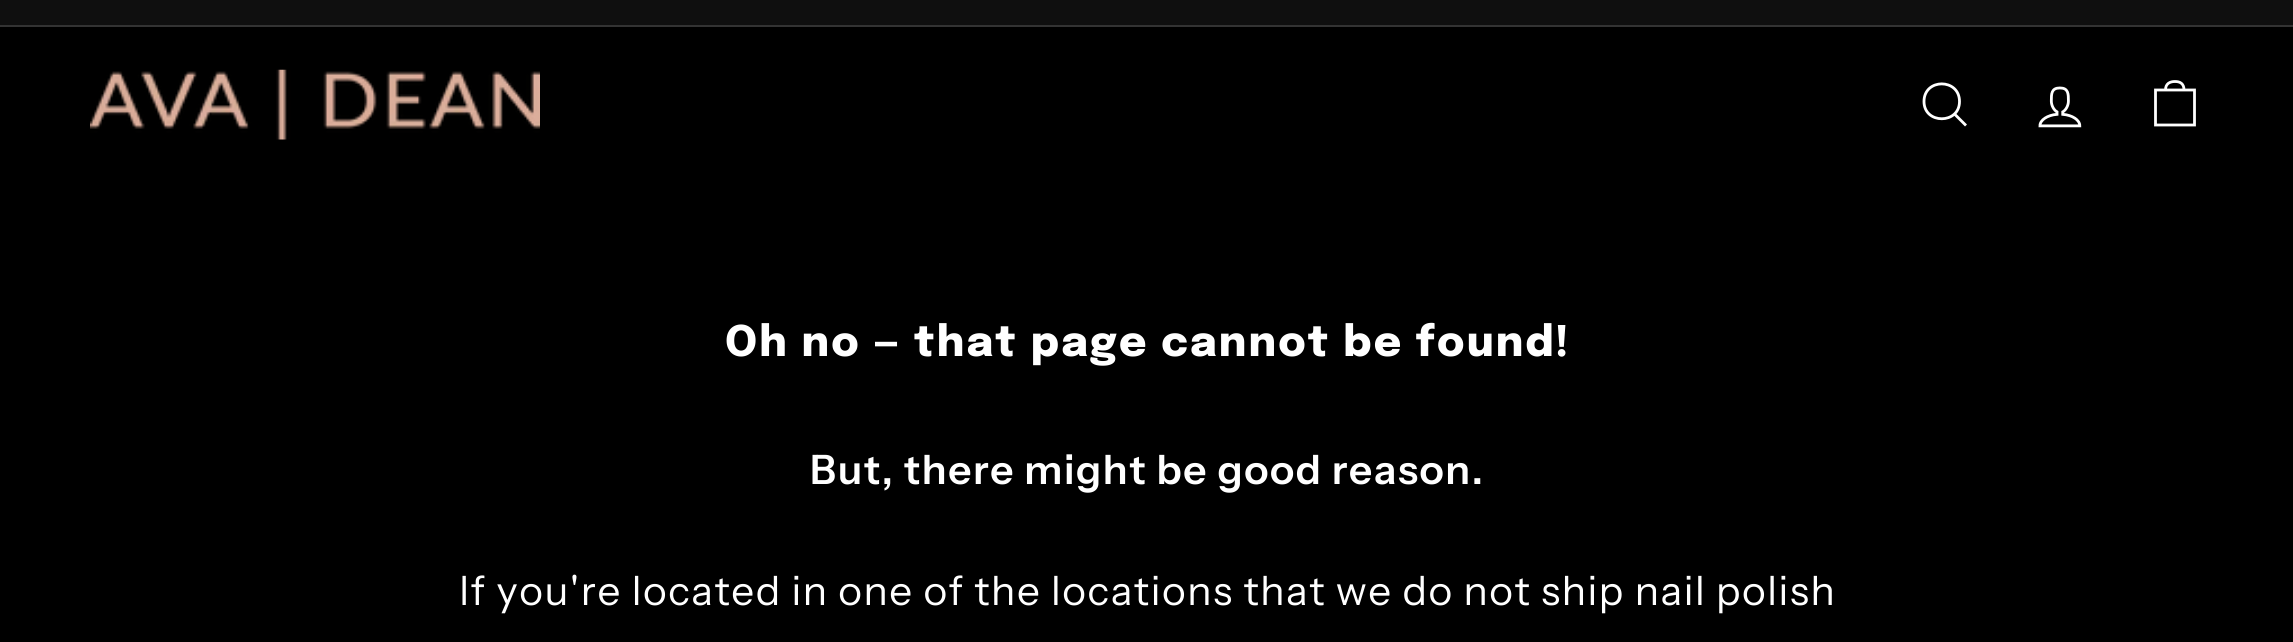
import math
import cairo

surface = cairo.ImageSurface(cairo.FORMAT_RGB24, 2293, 642)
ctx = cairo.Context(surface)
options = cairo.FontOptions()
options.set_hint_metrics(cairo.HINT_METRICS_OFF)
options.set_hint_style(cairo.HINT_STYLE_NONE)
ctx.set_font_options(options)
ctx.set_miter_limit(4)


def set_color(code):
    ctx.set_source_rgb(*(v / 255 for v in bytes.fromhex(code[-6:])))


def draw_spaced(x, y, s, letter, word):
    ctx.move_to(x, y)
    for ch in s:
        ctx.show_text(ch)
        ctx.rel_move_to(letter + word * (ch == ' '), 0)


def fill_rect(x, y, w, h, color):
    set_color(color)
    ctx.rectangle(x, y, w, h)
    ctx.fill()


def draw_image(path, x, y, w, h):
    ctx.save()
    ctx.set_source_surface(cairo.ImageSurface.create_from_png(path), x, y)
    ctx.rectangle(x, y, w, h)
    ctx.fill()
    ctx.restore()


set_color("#000000")
ctx.paint()
fill_rect(0, 0, 2293, 25, "#0f0f0f")
fill_rect(0, 25, 2293, 2, "#333333")
draw_image("assets/img1.png", 90, 69, 450, 71)
ctx.new_path()
ctx.move_to(1959.5, 101.5)
ctx.curve_to(1959.5, 124.5, 1924, 124.5, 1924, 101.5)
ctx.curve_to(1924, 78, 1959.5, 78, 1959.5, 101.5)
ctx.close_path()
ctx.move_to(1966, 125.5)
ctx.line_to(1954.5, 114)
set_color("#ffffff")
ctx.set_line_width(2.8)
ctx.stroke()
draw_image("assets/img2.png", 2038, 86, 44, 42)
ctx.new_path()
ctx.move_to(2165.5, 90)
ctx.curve_to(2165.5, 83.5, 2170, 81.5, 2175, 81.5)
ctx.curve_to(2180, 81.5, 2184, 83.5, 2184, 90)
ctx.move_to(2155.5, 90)
ctx.line_to(2194.5, 90)
ctx.line_to(2194.5, 125)
ctx.line_to(2155.5, 125)
ctx.close_path()
ctx.stroke()
ctx.select_font_face("Epilogue ExtraBold")
ctx.set_font_size(42.1)
draw_spaced(725, 356, "Oh no — that page cannot be found!", 2.1, 0)
ctx.select_font_face("Instrument Sans SemiBold")
ctx.set_font_size(40.5)
draw_spaced(810, 484, "But, there might be good reason.", 1.57, 0)
ctx.select_font_face("Instrument Sans")
draw_spaced(459, 605, "If you're located in one of the locations that we do not ship nail polish", 1.57, 0)
surface.write_to_png("output.png")
